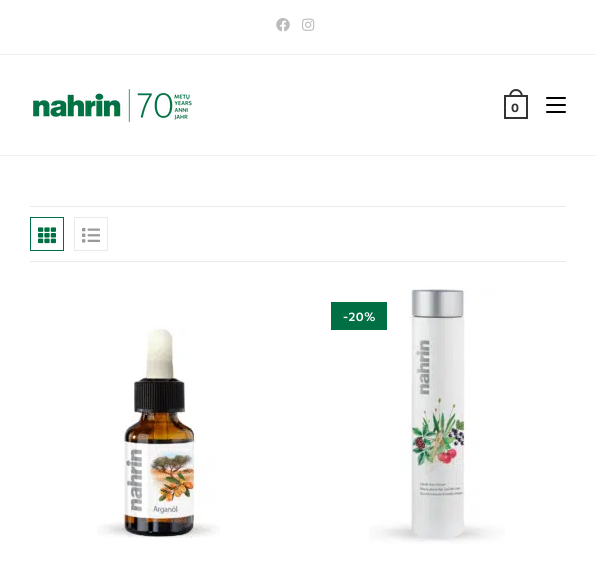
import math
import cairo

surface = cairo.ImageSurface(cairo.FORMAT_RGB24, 596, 573)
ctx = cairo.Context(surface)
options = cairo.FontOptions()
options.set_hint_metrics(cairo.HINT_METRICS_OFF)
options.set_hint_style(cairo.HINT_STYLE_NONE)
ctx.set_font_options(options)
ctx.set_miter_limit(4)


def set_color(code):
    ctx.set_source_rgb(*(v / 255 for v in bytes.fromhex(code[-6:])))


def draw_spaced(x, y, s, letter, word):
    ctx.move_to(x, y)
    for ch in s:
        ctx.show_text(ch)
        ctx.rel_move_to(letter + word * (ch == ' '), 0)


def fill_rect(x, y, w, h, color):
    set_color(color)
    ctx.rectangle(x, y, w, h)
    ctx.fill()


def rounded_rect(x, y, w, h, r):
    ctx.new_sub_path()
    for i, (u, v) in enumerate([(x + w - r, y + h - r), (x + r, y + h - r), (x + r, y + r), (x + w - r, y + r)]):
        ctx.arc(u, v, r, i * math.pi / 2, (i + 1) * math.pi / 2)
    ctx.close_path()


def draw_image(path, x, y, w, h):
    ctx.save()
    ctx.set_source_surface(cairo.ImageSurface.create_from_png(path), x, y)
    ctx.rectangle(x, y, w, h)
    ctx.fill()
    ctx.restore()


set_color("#ffffff")
ctx.paint()
fill_rect(0, 54, 596, 1, "#f1f1f1")
draw_image("assets/img1.png", 276, 18, 14, 14)
draw_image("assets/img2.png", 302, 18, 13, 13)
fill_rect(0, 155, 596, 1, "#f1f1f1")
draw_image("assets/img3.png", 33, 89, 159, 34)
ctx.rectangle(505, 96, 22, 22)
set_color("#333333")
ctx.stroke()
ctx.set_fill_rule(cairo.FILL_RULE_EVEN_ODD)
ctx.new_path()
ctx.move_to(516, 89)
ctx.curve_to(520.5, 89, 523, 93, 523, 97)
ctx.line_to(509, 97)
ctx.curve_to(509, 93, 511.5, 89, 516, 89)
ctx.close_path()
ctx.move_to(516, 91)
ctx.curve_to(519.5, 91, 521, 94, 521, 97)
ctx.line_to(511, 97)
ctx.curve_to(511, 94, 512.5, 91, 516, 91)
ctx.close_path()
ctx.fill()
ctx.select_font_face("Commissioner", cairo.FONT_SLANT_NORMAL, cairo.FONT_WEIGHT_BOLD)
ctx.set_font_size(12)
draw_spaced(511, 112, "0", 1, 0)
set_color("#000000")
rounded_rect(546, 111, 20, 2, 1)
ctx.fill()
rounded_rect(546, 97, 20, 2, 1)
ctx.fill()
rounded_rect(546, 104, 20, 2, 1)
ctx.fill()
fill_rect(30, 206, 536, 1, "#eaeaea")
fill_rect(30, 261, 536, 1, "#eaeaea")
ctx.rectangle(30.5, 217.5, 33, 33)
set_color("#006f43")
ctx.set_line_width(1)
ctx.stroke()
draw_image("assets/img4.png", 38, 227, 18, 17)
ctx.rectangle(74.5, 217.5, 33, 33)
set_color("#eaeaea")
ctx.stroke()
draw_image("assets/img5.png", 82, 227, 18, 16)
draw_image("assets/img6.png", 369, 286, 136, 258)
fill_rect(331, 302, 56, 28, "#006f43")
ctx.select_font_face("Commissioner SemiBold")
set_color("#ffffff")
draw_spaced(343, 321, "-20%", 0.5, 0)
draw_image("assets/img7.png", 97, 326, 123, 212)
surface.write_to_png("output.png")
